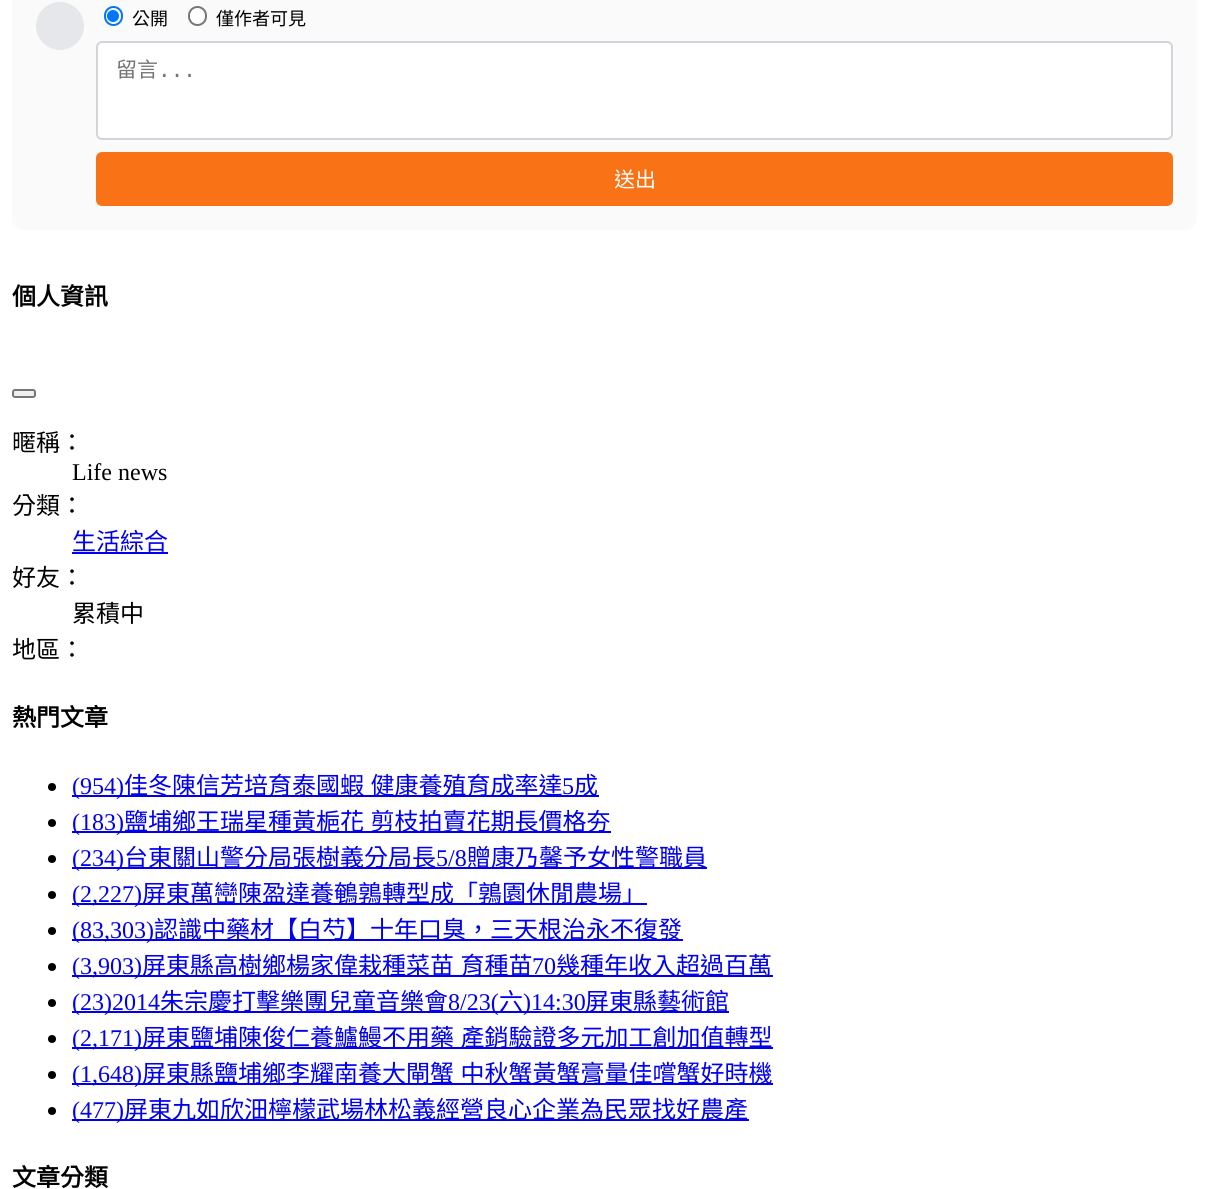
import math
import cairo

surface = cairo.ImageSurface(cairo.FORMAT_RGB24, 1209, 1189)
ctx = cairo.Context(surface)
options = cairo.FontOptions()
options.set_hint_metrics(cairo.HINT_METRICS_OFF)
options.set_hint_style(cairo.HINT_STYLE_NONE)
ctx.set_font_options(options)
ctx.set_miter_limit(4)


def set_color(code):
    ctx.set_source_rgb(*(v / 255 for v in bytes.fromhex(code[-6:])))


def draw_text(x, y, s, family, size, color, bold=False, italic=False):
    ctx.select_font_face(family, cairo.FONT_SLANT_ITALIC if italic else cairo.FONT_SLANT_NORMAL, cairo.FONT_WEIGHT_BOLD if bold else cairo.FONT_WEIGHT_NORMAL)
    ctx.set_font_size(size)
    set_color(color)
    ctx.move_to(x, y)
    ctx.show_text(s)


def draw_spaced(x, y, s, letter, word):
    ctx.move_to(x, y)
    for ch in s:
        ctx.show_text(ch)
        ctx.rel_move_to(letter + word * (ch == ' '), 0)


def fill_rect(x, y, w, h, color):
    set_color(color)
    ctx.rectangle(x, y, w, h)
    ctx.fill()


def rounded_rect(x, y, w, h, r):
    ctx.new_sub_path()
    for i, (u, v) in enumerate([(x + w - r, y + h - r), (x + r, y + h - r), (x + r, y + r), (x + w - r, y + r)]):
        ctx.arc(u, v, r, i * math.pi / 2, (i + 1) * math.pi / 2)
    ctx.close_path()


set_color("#ffffff")
ctx.paint()
set_color("#fafafa")
rounded_rect(12, -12, 1185, 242, 12)
ctx.fill()
set_color("#e5e7eb")
ctx.arc(60, 26, 24, 0, 2 * math.pi)
ctx.fill()
set_color("#ffffff")
rounded_rect(105, 7, 17, 18, 8.5)
ctx.fill_preserve()
set_color("#0075ff")
ctx.stroke()
ctx.arc(113, 16, 6, 0, 2 * math.pi)
ctx.fill()
draw_text(132, 25, "公開", "Noto Sans CJK TC", 18, "#000000")
set_color("#ffffff")
rounded_rect(189, 7, 17, 18, 8.5)
ctx.fill_preserve()
set_color("#767676")
ctx.stroke()
draw_text(216, 25, "僅作者可見", "Noto Sans CJK TC", 18, "#000000")
set_color("#ffffff")
rounded_rect(97, 42, 1075, 97, 5)
ctx.fill_preserve()
set_color("#d1d5db")
ctx.stroke()
draw_text(116, 77, "留言", "Noto Sans CJK TC", 21, "#757575")
draw_text(158, 77, "...", "DejaVu Sans Mono", 21, "#757575")
set_color("#f97316")
rounded_rect(96, 152, 1077, 54, 6)
ctx.fill()
draw_text(614, 187, "送出", "Noto Sans CJK TC", 21, "#ffffff")
draw_text(12, 305, "個人資訊", "Noto Sans CJK TC", 24, "#000000", bold=True)
set_color("#efefef")
rounded_rect(13, 390, 22, 7, 2)
ctx.fill_preserve()
set_color("#767676")
ctx.stroke()
draw_text(12, 451, "暱稱：", "Noto Sans CJK TC", 24, "#000000")
draw_text(72, 480, "Life news", "Liberation Serif", 24, "#000000")
draw_text(12, 514, "分類：", "Noto Sans CJK TC", 24, "#000000")
draw_text(72, 550, "生活綜合", "Noto Sans CJK TC", 24, "#0000ee")
fill_rect(72, 552, 96, 2, "#0000ee")
draw_text(12, 586, "好友：", "Noto Sans CJK TC", 24, "#000000")
draw_text(72, 622, "累積中", "Noto Sans CJK TC", 24, "#000000")
draw_text(12, 658, "地區：", "Noto Sans CJK TC", 24, "#000000")
draw_text(12, 726, "熱門文章", "Noto Sans CJK TC", 24, "#000000", bold=True)
ctx.new_path()
ctx.arc(52, 787, 4, 0, 2 * math.pi)
ctx.fill()
fill_rect(72, 795, 527, 2, "#0000ee")
draw_text(72, 794, "(954)", "Liberation Serif", 24, "#0000ee")
ctx.select_font_face("Noto Sans CJK TC")
draw_spaced(124, 794, "佳冬陳信芳培育泰國蝦 健康養殖育成率達", 0, 1)
draw_text(562, 794, "5", "Liberation Serif", 24, "#0000ee")
draw_text(574, 794, "成", "Noto Sans CJK TC", 24, "#0000ee")
set_color("#000000")
ctx.new_path()
ctx.arc(52, 823, 4, 0, 2 * math.pi)
ctx.fill()
fill_rect(72, 831, 539, 2, "#0000ee")
draw_text(72, 830, "(183)", "Liberation Serif", 24, "#0000ee")
ctx.select_font_face("Noto Sans CJK TC")
draw_spaced(124, 830, "鹽埔鄉王瑞星種黃梔花 剪枝拍賣花期長價格夯", 0, 1)
set_color("#000000")
ctx.new_path()
ctx.arc(52, 859, 4, 0, 2 * math.pi)
ctx.fill()
fill_rect(72, 867, 635, 2, "#0000ee")
draw_text(72, 866, "(234)", "Liberation Serif", 24, "#0000ee")
draw_text(124, 866, "台東關山警分局張樹義分局長", "Noto Sans CJK TC", 24, "#0000ee")
draw_text(436, 866, "5/8", "Liberation Serif", 24, "#0000ee")
draw_text(467, 866, "贈康乃馨予女性警職員", "Noto Sans CJK TC", 24, "#0000ee")
set_color("#000000")
ctx.new_path()
ctx.arc(52, 895, 4, 0, 2 * math.pi)
ctx.fill()
fill_rect(72, 903, 575, 2, "#0000ee")
draw_text(72, 902, "(2,227)", "Liberation Serif", 24, "#0000ee")
draw_text(142, 902, "屏東萬巒陳盈達養鵪鶉轉型成「鶉園休閒農場」", "Noto Sans CJK TC", 24, "#0000ee")
set_color("#000000")
ctx.new_path()
ctx.arc(52, 931, 4, 0, 2 * math.pi)
ctx.fill()
fill_rect(72, 939, 611, 2, "#0000ee")
draw_text(72, 938, "(83,303)", "Liberation Serif", 24, "#0000ee")
draw_text(154, 938, "認識中藥材【白芍】十年口臭，三天根治永不復發", "Noto Sans CJK TC", 24, "#0000ee")
set_color("#000000")
ctx.new_path()
ctx.arc(52, 967, 4, 0, 2 * math.pi)
ctx.fill()
fill_rect(72, 975, 701, 2, "#0000ee")
draw_text(72, 974, "(3,903)", "Liberation Serif", 24, "#0000ee")
ctx.select_font_face("Noto Sans CJK TC")
draw_spaced(142, 974, "屏東縣高樹鄉楊家偉栽種菜苗 育種苗", 0, 1)
draw_text(532, 974, "70", "Liberation Serif", 24, "#0000ee")
draw_text(556, 974, "幾種年收入超過百萬", "Noto Sans CJK TC", 24, "#0000ee")
set_color("#000000")
ctx.new_path()
ctx.arc(52, 1003, 4, 0, 2 * math.pi)
ctx.fill()
fill_rect(72, 1011, 657, 2, "#0000ee")
draw_text(72, 1010, "(23)2014", "Liberation Serif", 24, "#0000ee")
draw_text(160, 1010, "朱宗慶打擊樂團兒童音樂會", "Noto Sans CJK TC", 24, "#0000ee")
draw_text(448, 1010, "8/23(", "Liberation Serif", 24, "#0000ee")
draw_text(499, 1010, "六", "Noto Sans CJK TC", 24, "#0000ee")
draw_text(523, 1010, ")14:30", "Liberation Serif", 24, "#0000ee")
draw_text(585, 1010, "屏東縣藝術館", "Noto Sans CJK TC", 24, "#0000ee")
set_color("#000000")
ctx.new_path()
ctx.arc(52, 1039, 4, 0, 2 * math.pi)
ctx.fill()
fill_rect(72, 1047, 701, 2, "#0000ee")
draw_text(72, 1046, "(2,171)", "Liberation Serif", 24, "#0000ee")
ctx.select_font_face("Noto Sans CJK TC")
draw_spaced(142, 1046, "屏東鹽埔陳俊仁養鱸鰻不用藥 產銷驗證多元加工創加值轉型", 0, 1)
set_color("#000000")
ctx.new_path()
ctx.arc(52, 1075, 4, 0, 2 * math.pi)
ctx.fill()
fill_rect(72, 1083, 701, 2, "#0000ee")
draw_text(72, 1082, "(1,648)", "Liberation Serif", 24, "#0000ee")
ctx.select_font_face("Noto Sans CJK TC")
draw_spaced(142, 1082, "屏東縣鹽埔鄉李耀南養大閘蟹 中秋蟹黃蟹膏量佳嚐蟹好時機", 0, 1)
set_color("#000000")
ctx.new_path()
ctx.arc(52, 1111, 4, 0, 2 * math.pi)
ctx.fill()
fill_rect(72, 1119, 677, 2, "#0000ee")
draw_text(72, 1118, "(477)", "Liberation Serif", 24, "#0000ee")
draw_text(124, 1118, "屏東九如欣沺檸檬武場林松義經營良心企業為民眾找好農產", "Noto Sans CJK TC", 24, "#0000ee")
draw_text(12, 1186, "文章分類", "Noto Sans CJK TC", 24, "#000000", bold=True)
surface.write_to_png("output.png")
